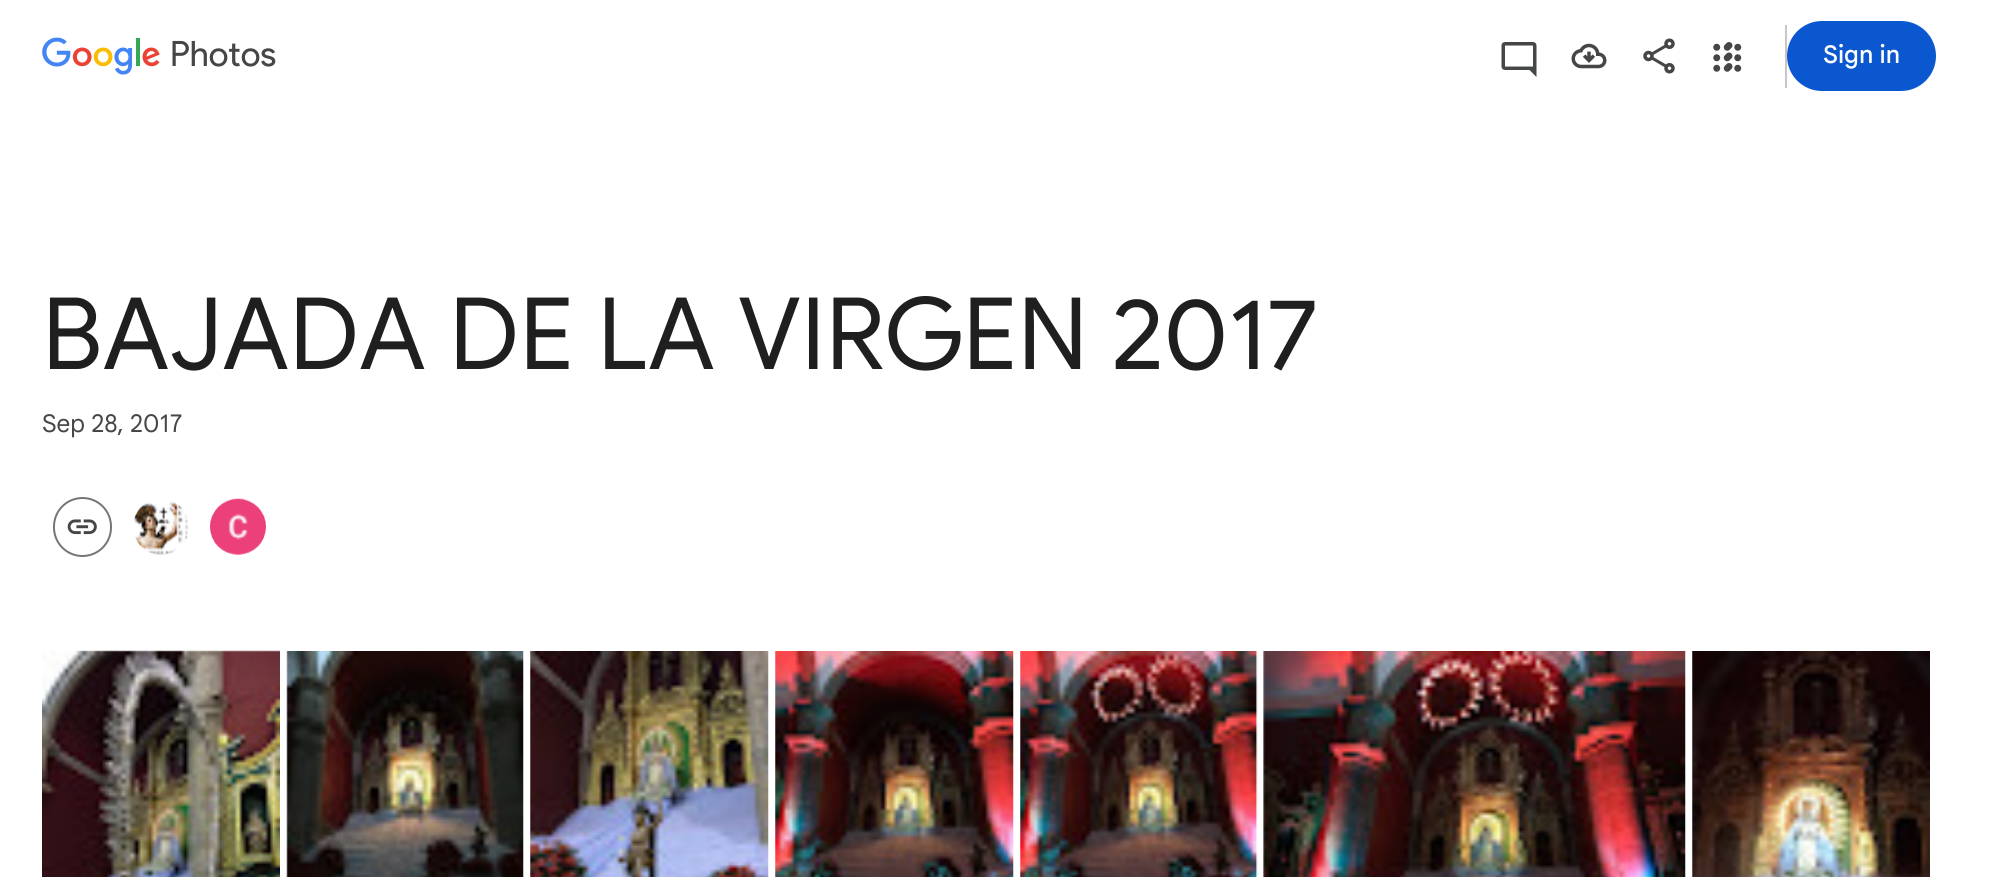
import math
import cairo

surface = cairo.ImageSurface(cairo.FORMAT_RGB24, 1998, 877)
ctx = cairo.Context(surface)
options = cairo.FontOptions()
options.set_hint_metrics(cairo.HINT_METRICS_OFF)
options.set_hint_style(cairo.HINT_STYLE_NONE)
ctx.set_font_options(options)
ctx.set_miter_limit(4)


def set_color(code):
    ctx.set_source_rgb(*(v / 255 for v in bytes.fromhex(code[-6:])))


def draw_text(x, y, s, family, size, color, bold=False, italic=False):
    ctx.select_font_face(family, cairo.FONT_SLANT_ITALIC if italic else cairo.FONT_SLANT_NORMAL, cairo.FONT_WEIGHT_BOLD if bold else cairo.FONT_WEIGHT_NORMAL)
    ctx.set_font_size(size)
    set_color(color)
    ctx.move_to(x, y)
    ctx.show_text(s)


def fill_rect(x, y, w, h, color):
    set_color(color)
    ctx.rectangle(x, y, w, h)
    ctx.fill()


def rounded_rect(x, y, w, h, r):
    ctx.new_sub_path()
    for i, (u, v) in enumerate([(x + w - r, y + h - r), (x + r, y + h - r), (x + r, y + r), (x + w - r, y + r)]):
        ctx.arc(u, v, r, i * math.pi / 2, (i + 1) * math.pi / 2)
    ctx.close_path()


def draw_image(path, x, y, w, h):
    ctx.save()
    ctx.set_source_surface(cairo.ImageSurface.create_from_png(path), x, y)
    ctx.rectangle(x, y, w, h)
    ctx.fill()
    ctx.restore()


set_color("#ffffff")
ctx.paint()
draw_image("assets/img1.png", 42, 37, 118, 38)
draw_text(170, 66, "Photos", "Product Sans", 35, "#444746")
draw_image("assets/img2.png", 1501, 42, 36, 35)
draw_image("assets/img3.png", 1571, 43, 36, 26)
draw_image("assets/img4.png", 1643, 38, 32, 36)
draw_image("assets/img5.png", 1725, 42, 8, 28)
fill_rect(1785, 25, 2, 63, "#c4c7c5")
draw_text(42, 369, "BAJADA DE LA VIRGEN 2017", "Google Sans", 99.75, "#1f1f1f")
draw_text(42, 432, "Sep 28, 2017", "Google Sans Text", 24.5, "#444746")
rounded_rect(54, 498, 57, 58, 28.5)
set_color("#747775")
ctx.stroke()
draw_image("assets/img6.png", 67, 519, 30, 16)
draw_image("assets/img7.png", 134, 501, 55, 54)
draw_image("assets/img8.png", 210, 498, 56, 57)
draw_image("assets/img9.png", 42, 650, 238, 227)
draw_image("assets/img10.png", 286, 651, 238, 226)
draw_image("assets/img11.png", 530, 651, 239, 226)
draw_image("assets/img12.png", 775, 651, 239, 226)
draw_image("assets/img13.png", 1020, 651, 238, 226)
draw_image("assets/img14.png", 1263, 651, 423, 226)
draw_image("assets/img15.png", 1692, 651, 238, 226)
draw_image("assets/img16.png", 1713, 43, 29, 29)
set_color("#0b57d0")
rounded_rect(1787, 21, 149, 70, 35)
ctx.fill()
draw_text(1823, 63, "Sign in", "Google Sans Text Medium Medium", 24.5, "#ffffff")
surface.write_to_png("output.png")
